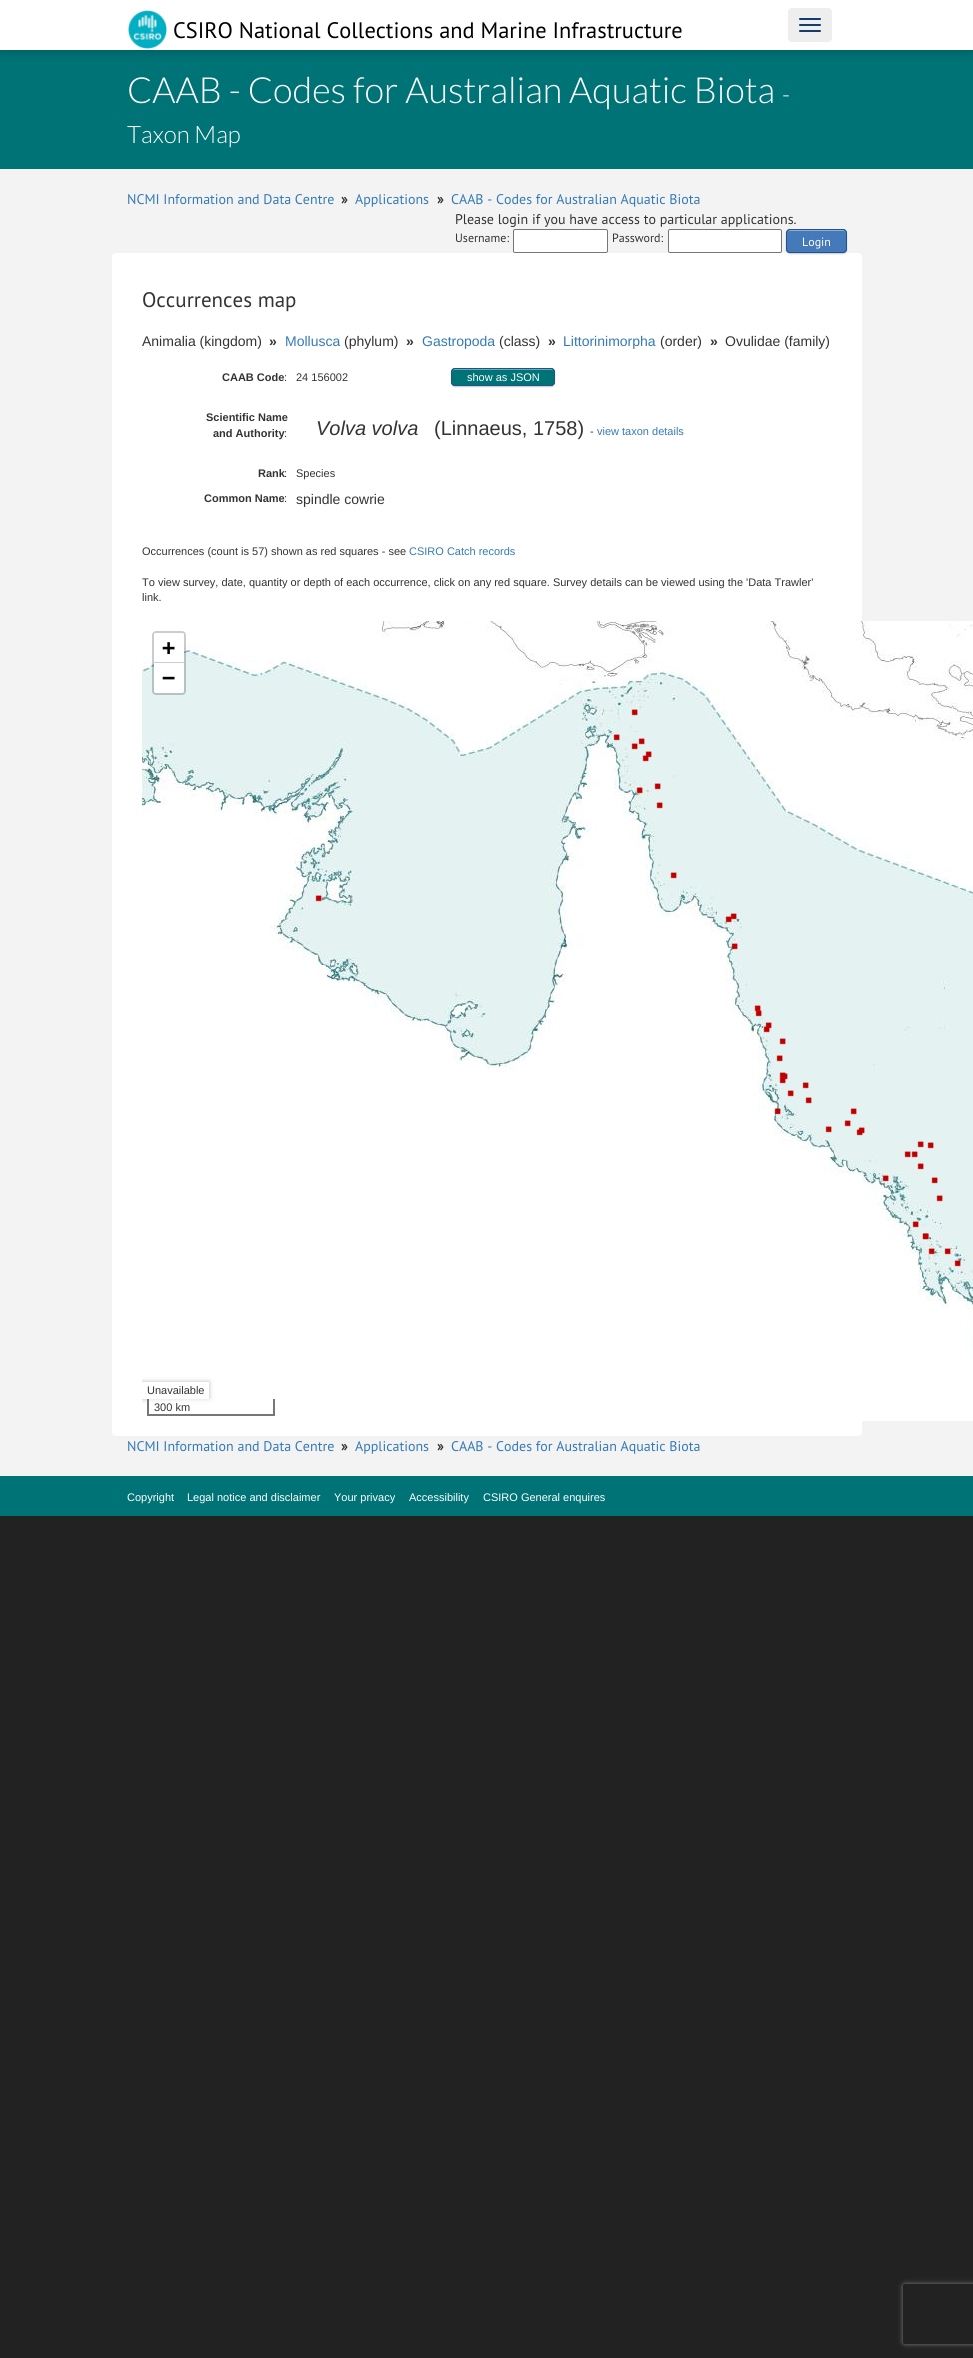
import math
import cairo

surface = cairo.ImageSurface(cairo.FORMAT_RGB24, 973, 2358)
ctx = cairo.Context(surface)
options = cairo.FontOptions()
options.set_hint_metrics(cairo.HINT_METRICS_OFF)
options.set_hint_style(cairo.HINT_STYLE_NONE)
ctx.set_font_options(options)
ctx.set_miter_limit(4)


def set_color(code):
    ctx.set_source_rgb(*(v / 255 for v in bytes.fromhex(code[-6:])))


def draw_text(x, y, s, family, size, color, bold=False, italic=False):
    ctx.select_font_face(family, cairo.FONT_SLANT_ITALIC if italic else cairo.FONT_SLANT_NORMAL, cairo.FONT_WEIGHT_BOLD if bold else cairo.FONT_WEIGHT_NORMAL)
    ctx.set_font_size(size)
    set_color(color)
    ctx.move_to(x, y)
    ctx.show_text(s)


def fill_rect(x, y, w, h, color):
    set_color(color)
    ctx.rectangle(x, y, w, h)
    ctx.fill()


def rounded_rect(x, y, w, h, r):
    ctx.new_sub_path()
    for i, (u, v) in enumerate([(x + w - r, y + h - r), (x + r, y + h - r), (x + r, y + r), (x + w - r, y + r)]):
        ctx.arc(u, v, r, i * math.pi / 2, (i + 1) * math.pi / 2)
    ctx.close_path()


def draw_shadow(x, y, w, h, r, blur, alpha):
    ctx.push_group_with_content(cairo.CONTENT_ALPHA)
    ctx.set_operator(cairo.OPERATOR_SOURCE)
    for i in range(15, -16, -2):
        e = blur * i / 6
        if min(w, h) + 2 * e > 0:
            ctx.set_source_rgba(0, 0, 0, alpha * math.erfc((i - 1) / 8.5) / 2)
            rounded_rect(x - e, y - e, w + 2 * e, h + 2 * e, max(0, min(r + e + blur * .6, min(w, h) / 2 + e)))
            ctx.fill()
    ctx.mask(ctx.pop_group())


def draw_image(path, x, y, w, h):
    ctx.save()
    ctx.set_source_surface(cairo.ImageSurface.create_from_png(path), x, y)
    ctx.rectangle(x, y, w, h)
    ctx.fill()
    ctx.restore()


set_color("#222222")
ctx.paint()
fill_rect(0, 169, 973, 1307, "#f3f3f3")
fill_rect(0, 50, 973, 119, "#007377")
set_color("#000000")
draw_shadow(0, 2, 973, 50, 0, 5, 0.2)
fill_rect(0, 0, 973, 50, "#ffffff")
draw_image("assets/img1.png", 128, 10, 39, 39)
draw_text(173, 38, "CSIRO National Collections and Marine Infrastructure", "PT Sans", 22.4, "#000000")
set_color("#eeeeee")
rounded_rect(788, 8, 44, 34, 4)
ctx.fill()
set_color("#153d6b")
rounded_rect(799, 18, 22, 2, 1)
ctx.fill()
rounded_rect(799, 24, 22, 2, 1)
ctx.fill()
rounded_rect(799, 30, 22, 2, 1)
ctx.fill()
draw_text(127, 103, "CAAB - Codes for Australian Aquatic Biota", "Lato Light", 36, "#ffffff")
draw_text(782, 103, "-", "Lato Light", 24, "#ffffff")
draw_text(127, 143, "Taxon Map", "Lato Light", 24, "#ffffff")
draw_text(127, 204, "NCMI Information and Data Centre", "PT Sans", 14, "#337ab7")
draw_text(341, 204, "»", "PT Sans", 14, "#333333", bold=True)
draw_text(355, 204, "Applications", "PT Sans", 14, "#337ab7")
draw_text(437, 204, "»", "PT Sans", 14, "#333333", bold=True)
draw_text(451, 204, "CAAB - Codes for Australian Aquatic Biota", "PT Sans", 14, "#337ab7")
draw_text(455, 224, "Please login if you have access to particular applications.", "PT Sans", 14, "#333333")
draw_text(455, 242, "Username:", "PT Sans", 12, "#333333")
set_color("#ffffff")
rounded_rect(513.5, 229.5, 94, 23, 1.5)
ctx.fill_preserve()
set_color("#767676")
ctx.set_line_width(1)
ctx.stroke()
draw_text(612, 242, "Password:", "PT Sans", 12, "#333333")
set_color("#ffffff")
rounded_rect(668.5, 229.5, 113, 23, 1.5)
ctx.fill_preserve()
set_color("#767676")
ctx.stroke()
set_color("#ffffff")
rounded_rect(112, 253, 750, 1183, 4)
ctx.fill()
set_color("#000000")
draw_shadow(786, 230, 61, 24, 4, 0.5, 0.2)
set_color("#4479ba")
rounded_rect(786, 229, 61, 24, 4)
ctx.fill()
set_color("#8fafd6")
ctx.new_path()
ctx.move_to(790, 231)
ctx.line_to(843, 231)
ctx.curve_to(845, 231, 846, 232, 846, 234)
ctx.curve_to(846, 228, 839, 230, 834, 230)
ctx.line_to(799, 230)
ctx.curve_to(794, 230, 787, 228, 787, 234)
ctx.curve_to(787, 232, 788, 231, 790, 231)
ctx.close_path()
ctx.fill()
rounded_rect(786.5, 229.5, 60, 23, 3.5)
set_color("#20538d")
ctx.stroke()
draw_text(802, 246, "Login", "PT Sans", 12, "#ffffff")
ctx.save()
ctx.set_fill_rule(cairo.FILL_RULE_EVEN_ODD)
ctx.new_path()
ctx.move_to(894, 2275)
ctx.line_to(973, 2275)
ctx.line_to(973, 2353)
ctx.line_to(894, 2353)
ctx.close_path()
ctx.move_to(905, 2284)
ctx.line_to(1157, 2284)
ctx.curve_to(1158, 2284, 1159, 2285, 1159, 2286)
ctx.line_to(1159, 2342)
ctx.curve_to(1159, 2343, 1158, 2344, 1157, 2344)
ctx.line_to(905, 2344)
ctx.curve_to(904, 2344, 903, 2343, 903, 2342)
ctx.line_to(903, 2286)
ctx.curve_to(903, 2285, 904, 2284, 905, 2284)
ctx.close_path()
ctx.clip()
set_color("#808080")
draw_shadow(903, 2284, 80, 60, 2, 2.5, 1)
ctx.restore()
draw_text(142, 307, "Occurrences map", "PT Sans", 21, "#333333")
draw_text(142, 346, "Animalia (kingdom)", "Liberation Sans", 14, "#333333")
draw_text(269, 346, "»", "Liberation Sans", 14, "#333333", bold=True)
draw_text(285, 346, "Mollusca", "Liberation Sans", 14, "#337ab7")
draw_text(344, 346, "(phylum)", "Liberation Sans", 14, "#333333")
draw_text(406, 346, "»", "Liberation Sans", 14, "#333333", bold=True)
draw_text(422, 346, "Gastropoda", "Liberation Sans", 14, "#337ab7")
draw_text(499, 346, "(class)", "Liberation Sans", 14, "#333333")
draw_text(548, 346, "»", "Liberation Sans", 14, "#333333", bold=True)
draw_text(563, 346, "Littorinimorpha", "Liberation Sans", 14, "#337ab7")
draw_text(660, 346, "(order)", "Liberation Sans", 14, "#333333")
draw_text(710, 346, "»", "Liberation Sans", 14, "#333333", bold=True)
draw_text(725, 346, "Ovulidae (family)", "Liberation Sans", 14, "#333333")
draw_text(222, 381, "CAAB Code", "Liberation Sans", 11, "#333333", bold=True)
draw_text(284, 381, ":", "Liberation Sans", 11, "#333333")
draw_text(296, 381, "24 156002", "Liberation Sans", 11, "#333333")
set_color("#000000")
draw_shadow(451, 369, 104, 18, 4, 0.5, 0.2)
set_color("#007377")
rounded_rect(451, 368, 104, 18, 4)
ctx.fill()
set_color("#66abad")
ctx.new_path()
ctx.move_to(455, 370)
ctx.line_to(551, 370)
ctx.curve_to(553, 370, 554, 371, 554, 373)
ctx.curve_to(554, 365, 538, 369, 535, 369)
ctx.line_to(471, 369)
ctx.curve_to(468, 369, 452, 365, 452, 373)
ctx.curve_to(452, 371, 453, 370, 455, 370)
ctx.close_path()
ctx.fill()
rounded_rect(451.5, 368.5, 103, 17, 3.5)
set_color("#20538d")
ctx.stroke()
draw_text(467, 381, "show as JSON", "Liberation Sans", 11, "#ffffff")
draw_text(206, 421, "Scientific Name", "Liberation Sans", 11, "#333333", bold=True)
draw_text(213, 437, "and Authority", "Liberation Sans", 11, "#333333", bold=True)
draw_text(284, 437, ":", "Liberation Sans", 11, "#333333")
draw_text(316, 435, "Volva volva", "Liberation Sans", 20, "#333333", italic=True)
draw_text(434, 435, "(Linnaeus, 1758)", "Liberation Sans", 20, "#333333")
draw_text(590, 435, "-", "Liberation Sans", 11, "#333333")
draw_text(597, 435, "view taxon details", "Liberation Sans", 11, "#337ab7")
draw_text(258, 477, "Rank", "Liberation Sans", 11, "#333333", bold=True)
draw_text(284, 477, ":", "Liberation Sans", 11, "#333333")
draw_text(296, 477, "Species", "Liberation Sans", 11, "#333333")
draw_text(204, 502, "Common Name", "Liberation Sans", 11, "#333333", bold=True)
draw_text(284, 502, ":", "Liberation Sans", 11, "#333333")
draw_text(296, 504, "spindle cowrie", "Liberation Sans", 14, "#333333")
draw_text(142, 555, "Occurrences (count is 57) shown as red squares - see", "Liberation Sans", 11, "#333333")
draw_text(409, 555, "CSIRO Catch records", "Liberation Sans", 11, "#337ab7")
draw_text(142, 586, "To view survey, date, quantity or depth of each occurrence, click on any red square. Survey details can be viewed using the 'Data Trawler'", "Liberation Sans", 11, "#333333")
draw_text(142, 601, "link.", "Liberation Sans", 11, "#333333")
draw_image("assets/img2.png", 142, 621, 120, 136)
draw_image("assets/img3.png", 262, 621, 256, 136)
draw_image("assets/img4.png", 518, 621, 256, 136)
draw_image("assets/img5.png", 774, 621, 199, 136)
draw_image("assets/img6.png", 142, 757, 120, 256)
draw_image("assets/img7.png", 262, 757, 256, 256)
draw_image("assets/img8.png", 518, 757, 256, 256)
draw_image("assets/img9.png", 774, 757, 199, 256)
draw_image("assets/img10.png", 262, 1013, 256, 256)
draw_image("assets/img11.png", 518, 1013, 256, 256)
draw_image("assets/img12.png", 774, 1013, 199, 256)
draw_image("assets/img13.png", 774, 1269, 199, 152)
draw_image("assets/img14.png", 631, 709, 7, 7)
draw_image("assets/img15.png", 613, 734, 7, 7)
draw_image("assets/img14.png", 638, 738, 7, 7)
draw_image("assets/img14.png", 631, 743, 7, 7)
draw_image("assets/img14.png", 645, 751, 7, 7)
draw_image("assets/img16.png", 642, 755, 7, 7)
draw_image("assets/img17.png", 636, 787, 7, 7)
draw_image("assets/img14.png", 654, 783, 7, 7)
draw_image("assets/img14.png", 656, 802, 7, 7)
draw_image("assets/img14.png", 670, 872, 7, 7)
draw_image("assets/img18.png", 315, 895, 7, 7)
draw_image("assets/img20.png", 730, 913, 7, 7)
draw_image("assets/img19.png", 725, 916, 7, 7)
draw_image("assets/img21.png", 731, 943, 7, 7)
draw_image("assets/img22.png", 754, 1005, 7, 7)
draw_image("assets/img23.png", 755, 1010, 7, 7)
draw_image("assets/img24.png", 765, 1022, 7, 7)
draw_image("assets/img25.png", 763, 1026, 7, 7)
draw_image("assets/img14.png", 779, 1038, 7, 7)
draw_image("assets/img14.png", 776, 1055, 7, 7)
draw_image("assets/img26.png", 779, 1072, 7, 7)
draw_image("assets/img27.png", 781, 1073, 7, 7)
draw_image("assets/img28.png", 779, 1077, 7, 7)
draw_image("assets/img14.png", 802, 1082, 7, 7)
draw_image("assets/img29.png", 787, 1090, 7, 7)
draw_image("assets/img14.png", 805, 1097, 7, 7)
draw_image("assets/img30.png", 774, 1108, 7, 7)
draw_image("assets/img14.png", 850, 1108, 7, 7)
draw_image("assets/img14.png", 844, 1120, 7, 7)
draw_image("assets/img14.png", 825, 1126, 7, 7)
draw_image("assets/img14.png", 858, 1127, 7, 7)
draw_image("assets/img31.png", 856, 1129, 7, 7)
draw_image("assets/img14.png", 917, 1141, 7, 7)
draw_image("assets/img14.png", 927, 1142, 7, 7)
draw_image("assets/img14.png", 904, 1151, 7, 7)
draw_image("assets/img14.png", 911, 1151, 7, 7)
draw_image("assets/img14.png", 917, 1163, 7, 7)
draw_image("assets/img32.png", 882, 1175, 7, 7)
draw_image("assets/img14.png", 931, 1177, 7, 7)
draw_image("assets/img14.png", 936, 1195, 7, 7)
draw_image("assets/img33.png", 912, 1221, 7, 7)
draw_image("assets/img34.png", 922, 1233, 7, 7)
draw_image("assets/img35.png", 922, 1233, 7, 7)
draw_image("assets/img36.png", 928, 1248, 7, 7)
draw_image("assets/img37.png", 944, 1248, 7, 7)
draw_image("assets/img38.png", 954, 1260, 7, 7)
rounded_rect(153, 632, 32, 62, 3)
ctx.set_source_rgba(0, 0, 0, 0.2)
ctx.set_line_width(2)
ctx.stroke()
set_color("#ffffff")
ctx.new_path()
ctx.move_to(156, 633)
ctx.line_to(182, 633)
ctx.curve_to(183, 633, 184, 634, 184, 635)
ctx.line_to(184, 663)
ctx.line_to(154, 663)
ctx.line_to(154, 635)
ctx.curve_to(154, 634, 155, 633, 156, 633)
ctx.close_path()
ctx.fill()
fill_rect(154, 662, 30, 1, "#cccccc")
draw_text(162, 655, "+", "DejaVu Sans Mono", 22, "#000000", bold=True)
set_color("#ffffff")
ctx.new_path()
ctx.move_to(154, 663)
ctx.line_to(184, 663)
ctx.line_to(184, 691)
ctx.curve_to(184, 692, 183, 693, 182, 693)
ctx.line_to(156, 693)
ctx.curve_to(155, 693, 154, 692, 154, 691)
ctx.close_path()
ctx.fill()
draw_text(162, 685, "−", "DejaVu Sans Mono", 22, "#000000", bold=True)
ctx.save()
ctx.rectangle(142, 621, 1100, 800)
ctx.clip()
ctx.set_fill_rule(cairo.FILL_RULE_EVEN_ODD)
ctx.new_path()
ctx.move_to(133, 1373)
ctx.line_to(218, 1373)
ctx.line_to(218, 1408)
ctx.line_to(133, 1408)
ctx.close_path()
ctx.move_to(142, 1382)
ctx.line_to(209, 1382)
ctx.line_to(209, 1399)
ctx.line_to(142, 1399)
ctx.close_path()
ctx.clip()
set_color("#bbbbbb")
draw_shadow(142, 1382, 67, 17, 0, 2.5, 1)
ctx.restore()
draw_text(147, 1394, "Unavailable", "Liberation Sans", 11, "#333333")
ctx.set_source_rgba(1, 1, 1, 0.5)
ctx.rectangle(149, 1399, 62, 4)
ctx.fill()
fill_rect(273, 1399, 2, 17, "#777777")
fill_rect(147, 1414, 128, 2, "#777777")
fill_rect(147, 1399, 2, 17, "#777777")
draw_text(154, 1411, "300 km", "Liberation Sans", 11, "#333333")
draw_text(127, 1451, "NCMI Information and Data Centre", "PT Sans", 14, "#337ab7")
draw_text(341, 1451, "»", "PT Sans", 14, "#333333", bold=True)
draw_text(355, 1451, "Applications", "PT Sans", 14, "#337ab7")
draw_text(437, 1451, "»", "PT Sans", 14, "#333333", bold=True)
draw_text(451, 1451, "CAAB - Codes for Australian Aquatic Biota", "PT Sans", 14, "#337ab7")
fill_rect(0, 1476, 973, 40, "#007377")
draw_text(127, 1501, "Copyright", "Liberation Sans", 11, "#ffffff")
draw_text(187, 1501, "Legal notice and disclaimer", "Liberation Sans", 11, "#ffffff")
draw_text(334, 1501, "Your privacy", "Liberation Sans", 11, "#ffffff")
draw_text(409, 1501, "Accessibility", "Liberation Sans", 11, "#ffffff")
draw_text(483, 1501, "CSIRO General enquires", "Liberation Sans", 11, "#ffffff")
surface.write_to_png("output.png")
